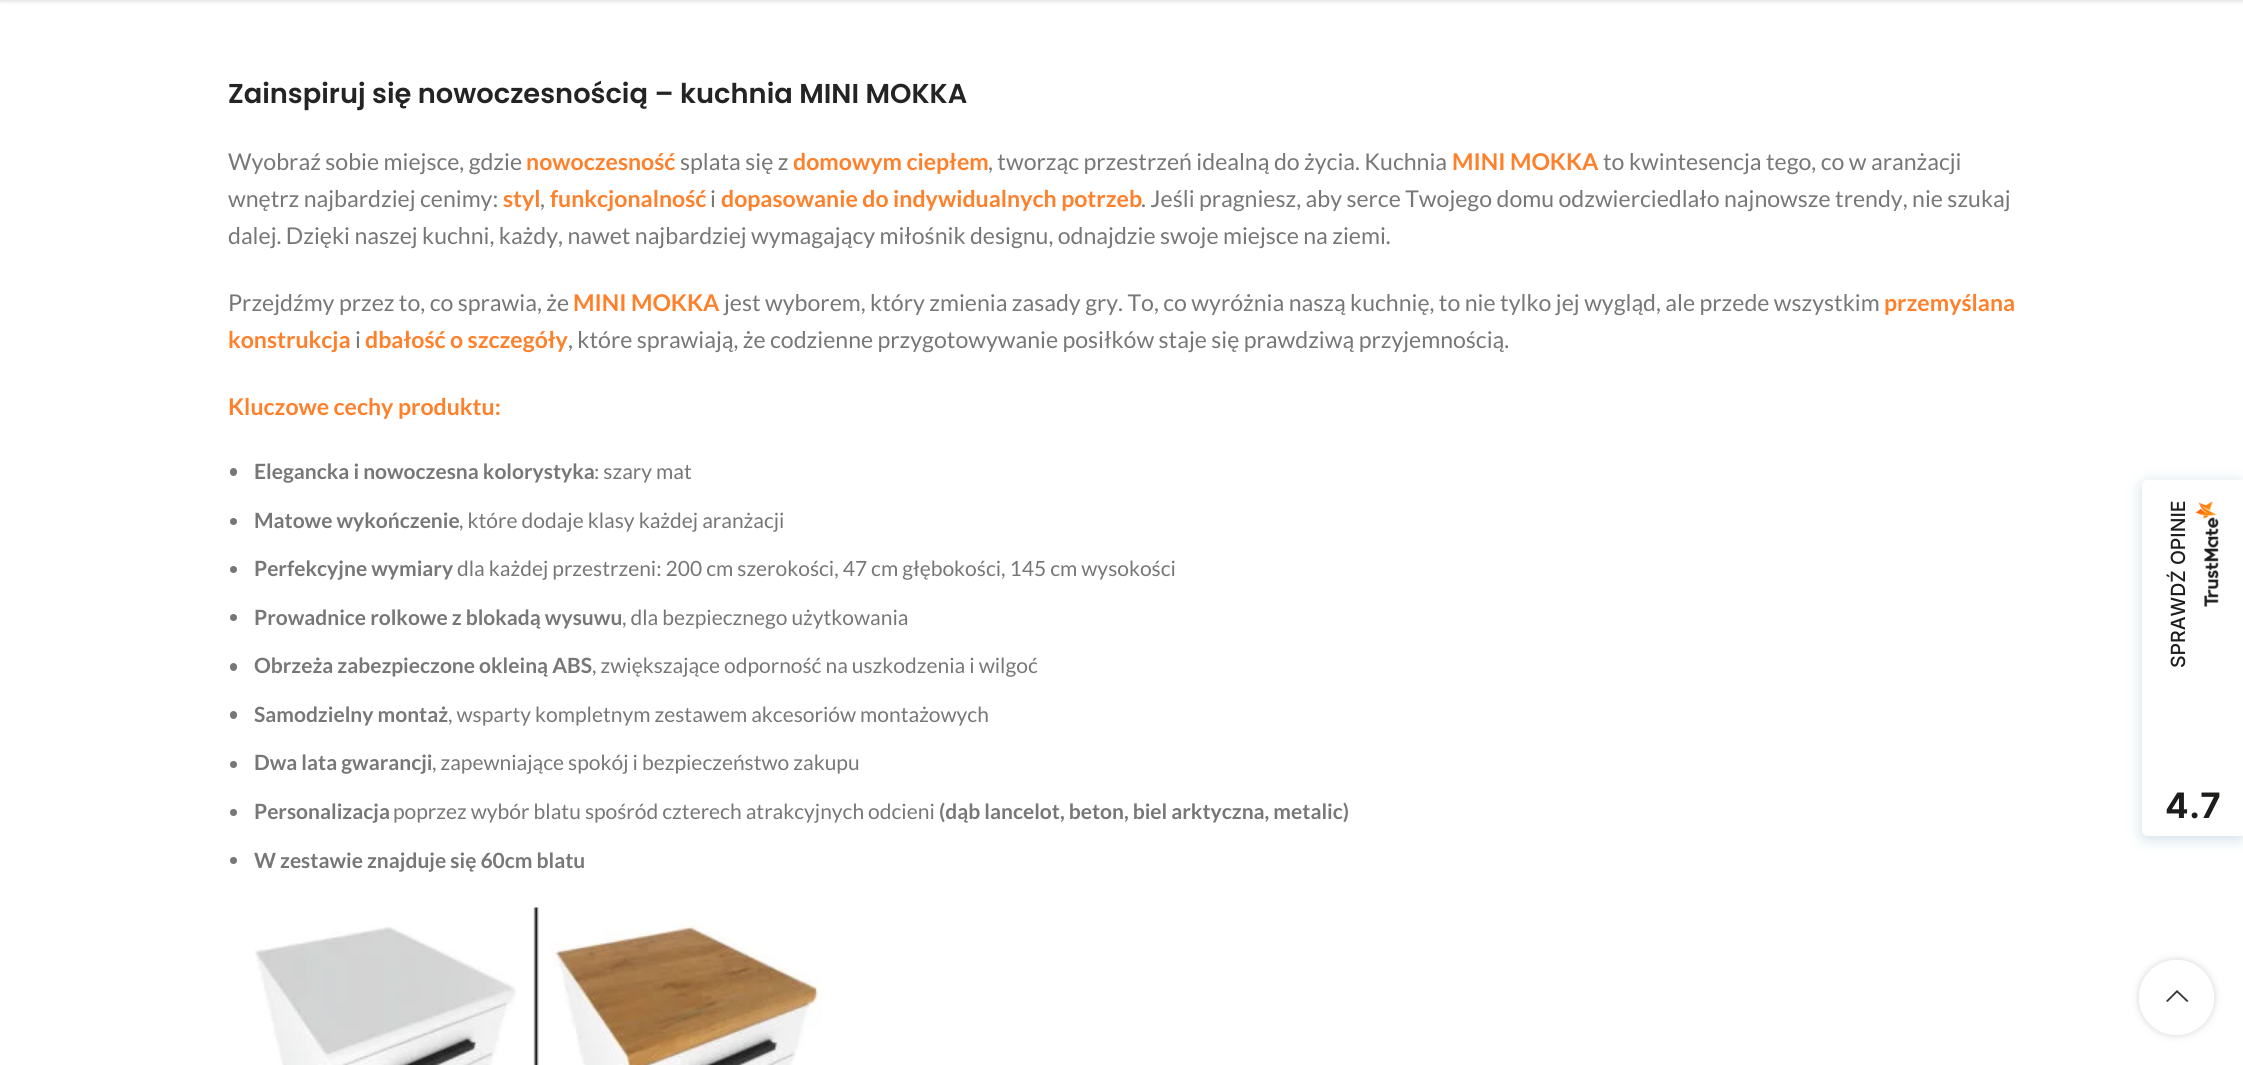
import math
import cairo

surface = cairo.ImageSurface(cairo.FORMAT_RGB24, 2243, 1065)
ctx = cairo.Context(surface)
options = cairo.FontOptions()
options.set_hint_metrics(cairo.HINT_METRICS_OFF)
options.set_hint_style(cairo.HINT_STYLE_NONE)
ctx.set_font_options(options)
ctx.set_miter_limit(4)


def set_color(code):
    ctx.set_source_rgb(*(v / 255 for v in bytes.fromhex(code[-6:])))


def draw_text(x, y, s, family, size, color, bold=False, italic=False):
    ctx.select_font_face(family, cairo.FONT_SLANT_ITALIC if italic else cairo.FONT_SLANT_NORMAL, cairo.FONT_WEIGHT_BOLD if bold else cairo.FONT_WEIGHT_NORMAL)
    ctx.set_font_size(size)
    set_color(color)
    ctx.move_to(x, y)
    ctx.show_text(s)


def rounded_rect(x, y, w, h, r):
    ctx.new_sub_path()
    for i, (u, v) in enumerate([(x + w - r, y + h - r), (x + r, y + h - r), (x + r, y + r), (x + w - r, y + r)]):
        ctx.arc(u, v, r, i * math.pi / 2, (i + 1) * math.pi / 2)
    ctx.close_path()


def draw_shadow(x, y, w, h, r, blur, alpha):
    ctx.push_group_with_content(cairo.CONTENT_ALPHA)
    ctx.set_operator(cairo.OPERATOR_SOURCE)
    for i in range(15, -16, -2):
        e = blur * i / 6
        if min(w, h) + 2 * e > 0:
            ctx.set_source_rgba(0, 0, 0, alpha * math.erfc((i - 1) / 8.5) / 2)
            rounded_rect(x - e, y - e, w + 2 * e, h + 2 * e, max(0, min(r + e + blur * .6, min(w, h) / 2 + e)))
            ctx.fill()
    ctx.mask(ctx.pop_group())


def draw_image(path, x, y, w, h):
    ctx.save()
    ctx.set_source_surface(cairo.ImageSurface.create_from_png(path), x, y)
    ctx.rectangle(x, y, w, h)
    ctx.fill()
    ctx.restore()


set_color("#ffffff")
ctx.paint()
set_color("#000000")
draw_shadow(0, -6, 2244, 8, 0, 2, 0.1)
draw_text(228, 103, "Zainspiruj się nowoczesnością – kuchnia MINI MOKKA", "Poppins SemiBold", 27.3, "#242424")
draw_text(228, 170, "Wyobraź sobie miejsce, gdzie", "Lato", 23.1, "#777777")
draw_text(526, 170, "nowoczesność", "Lato", 23.1, "#ff802b", bold=True)
draw_text(680, 170, "splata się z", "Lato", 23.1, "#777777")
draw_text(793, 170, "domowym ciepłem", "Lato", 23.1, "#ff802b", bold=True)
draw_text(988, 170, ", tworząc przestrzeń idealną do życia. Kuchnia", "Lato", 23.1, "#777777")
draw_text(1452, 170, "MINI MOKKA", "Lato", 23.1, "#ff802b", bold=True)
draw_text(1603, 170, "to kwintesencja tego, co w aranżacji", "Lato", 23.1, "#777777")
draw_text(228, 207, "wnętrz najbardziej cenimy:", "Lato", 23.1, "#777777")
draw_text(503, 207, "styl", "Lato", 23.1, "#ff802b", bold=True)
draw_text(540, 207, ",", "Lato", 23.1, "#777777")
draw_text(550, 207, "funkcjonalność", "Lato", 23.1, "#ff802b", bold=True)
draw_text(710, 207, "i", "Lato", 23.1, "#777777")
draw_text(721, 207, "dopasowanie do indywidualnych potrzeb", "Lato", 23.1, "#ff802b", bold=True)
draw_text(1141, 207, ". Jeśli pragniesz, aby serce Twojego domu odzwierciedlało najnowsze trendy, nie szukaj", "Lato", 23.1, "#777777")
draw_text(228, 244, "dalej. Dzięki naszej kuchni, każdy, nawet najbardziej wymagający miłośnik designu, odnajdzie swoje miejsce na ziemi.", "Lato", 23.1, "#777777")
draw_text(228, 311, "Przejdźmy przez to, co sprawia, że", "Lato", 23.1, "#777777")
draw_text(573, 311, "MINI MOKKA", "Lato", 23.1, "#ff802b", bold=True)
draw_text(724, 311, "jest wyborem, który zmienia zasady gry. To, co wyróżnia naszą kuchnię, to nie tylko jej wygląd, ale przede wszystkim", "Lato", 23.1, "#777777")
draw_text(1884, 311, "przemyślana", "Lato", 23.1, "#ff802b", bold=True)
draw_text(228, 348, "konstrukcja", "Lato", 23.1, "#ff802b", bold=True)
draw_text(355, 348, "i", "Lato", 23.1, "#777777")
draw_text(365, 348, "dbałość o szczegóły", "Lato", 23.1, "#ff802b", bold=True)
draw_text(568, 348, ", które sprawiają, że codzienne przygotowywanie posiłków staje się prawdziwą przyjemnością.", "Lato", 23.1, "#777777")
draw_text(228, 415, "Kluczowe cechy produktu:", "Lato", 23.1, "#ff802b", bold=True)
set_color("#777777")
rounded_rect(230, 468, 7, 8, 3.5)
ctx.fill()
draw_text(254, 479, "Elegancka i nowoczesna kolorystyka", "Lato", 21, "#777777", bold=True)
draw_text(594, 479, ": szary mat", "Lato", 21, "#777777")
ctx.new_path()
ctx.arc(233.5, 521.5, 3.5, 0, 2 * math.pi)
ctx.fill()
draw_text(254, 528, "Matowe wykończenie", "Lato", 21, "#777777", bold=True)
draw_text(459, 528, ", które dodaje klasy każdej aranżacji", "Lato", 21, "#777777")
ctx.new_path()
ctx.arc(233.5, 569.5, 3.5, 0, 2 * math.pi)
ctx.fill()
draw_text(254, 576, "Perfekcyjne wymiary", "Lato", 21, "#777777", bold=True)
draw_text(457, 576, "dla każdej przestrzeni: 200 cm szerokości, 47 cm głębokości, 145 cm wysokości", "Lato", 21, "#777777")
ctx.new_path()
ctx.arc(233.5, 617.5, 3.5, 0, 2 * math.pi)
ctx.fill()
draw_text(254, 625, "Prowadnice rolkowe z blokadą wysuwu", "Lato", 21, "#777777", bold=True)
draw_text(622, 625, ", dla bezpiecznego użytkowania", "Lato", 21, "#777777")
rounded_rect(230, 663, 7, 8, 3.5)
ctx.fill()
draw_text(254, 673, "Obrzeża zabezpieczone okleiną ABS", "Lato", 21, "#777777", bold=True)
draw_text(592, 673, ", zwiększające odporność na uszkodzenia i wilgoć", "Lato", 21, "#777777")
rounded_rect(230, 711, 7, 8, 3.5)
ctx.fill()
draw_text(254, 722, "Samodzielny montaż", "Lato", 21, "#777777", bold=True)
draw_text(448, 722, ", wsparty kompletnym zestawem akcesoriów montażowych", "Lato", 21, "#777777")
ctx.new_path()
ctx.arc(233.5, 764.5, 3.5, 0, 2 * math.pi)
ctx.fill()
draw_text(254, 770, "Dwa lata gwarancji", "Lato", 21, "#777777", bold=True)
draw_text(432, 770, ", zapewniające spokój i bezpieczeństwo zakupu", "Lato", 21, "#777777")
ctx.new_path()
ctx.arc(233.5, 812.5, 3.5, 0, 2 * math.pi)
ctx.fill()
draw_text(254, 819, "Personalizacja", "Lato", 21, "#777777", bold=True)
draw_text(393, 819, "poprzez wybór blatu spośród czterech atrakcyjnych odcieni", "Lato", 21, "#777777")
draw_text(939, 819, "(dąb lancelot, beton, biel arktyczna, metalic)", "Lato", 21, "#777777", bold=True)
ctx.new_path()
ctx.arc(233.5, 860.5, 3.5, 0, 2 * math.pi)
ctx.fill()
draw_text(254, 868, "W zestawie znajduje się 60cm blatu", "Lato", 21, "#777777", bold=True)
draw_image("assets/img1.png", 255, 907, 567, 158)
set_color("#0b5680")
draw_shadow(2142, 483, 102, 356, 6, 7.5, 0.2)
set_color("#ffffff")
ctx.new_path()
ctx.move_to(2148, 480)
ctx.line_to(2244, 480)
ctx.line_to(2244, 836)
ctx.line_to(2148, 836)
ctx.curve_to(2144.5, 836, 2142, 833.5, 2142, 830)
ctx.line_to(2142, 486)
ctx.curve_to(2142, 482.5, 2144.5, 480, 2148, 480)
ctx.close_path()
ctx.fill()
ctx.save()
ctx.translate(2185, 668)
ctx.rotate(-90 * math.pi / 180)
draw_text(0, 0, "SPRAWDŹ OPINIE", "Inter Medium", 19.5, "#1d1d1b")
ctx.restore()
draw_image("assets/img2.png", 2195, 501, 24, 106)
draw_text(2165, 818, "4.7", "Inter", 35, "#1d1d1b", bold=True)
ctx.save()
ctx.set_fill_rule(cairo.FILL_RULE_EVEN_ODD)
ctx.new_path()
ctx.move_to(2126, 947)
ctx.line_to(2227, 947)
ctx.line_to(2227, 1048)
ctx.line_to(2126, 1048)
ctx.close_path()
ctx.move_to(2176.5, 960)
ctx.curve_to(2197, 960, 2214, 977, 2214, 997.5)
ctx.curve_to(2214, 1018, 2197, 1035, 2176.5, 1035)
ctx.curve_to(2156, 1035, 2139, 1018, 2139, 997.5)
ctx.curve_to(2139, 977, 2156, 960, 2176.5, 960)
ctx.close_path()
ctx.clip()
set_color("#000000")
draw_shadow(2139, 960, 75, 75, 37.5, 4, 0.17)
ctx.restore()
ctx.set_source_rgba(1, 1, 1, 0.9)
ctx.arc(2176.5, 997.5, 37.5, 0, 2 * math.pi)
ctx.fill()
set_color("#333333")
ctx.new_path()
ctx.move_to(2187, 1002)
ctx.line_to(2188.5, 1001)
ctx.line_to(2177, 990)
ctx.line_to(2166, 1001)
ctx.line_to(2167.5, 1002)
ctx.line_to(2177, 992.5)
ctx.close_path()
ctx.fill()
surface.write_to_png("output.png")
